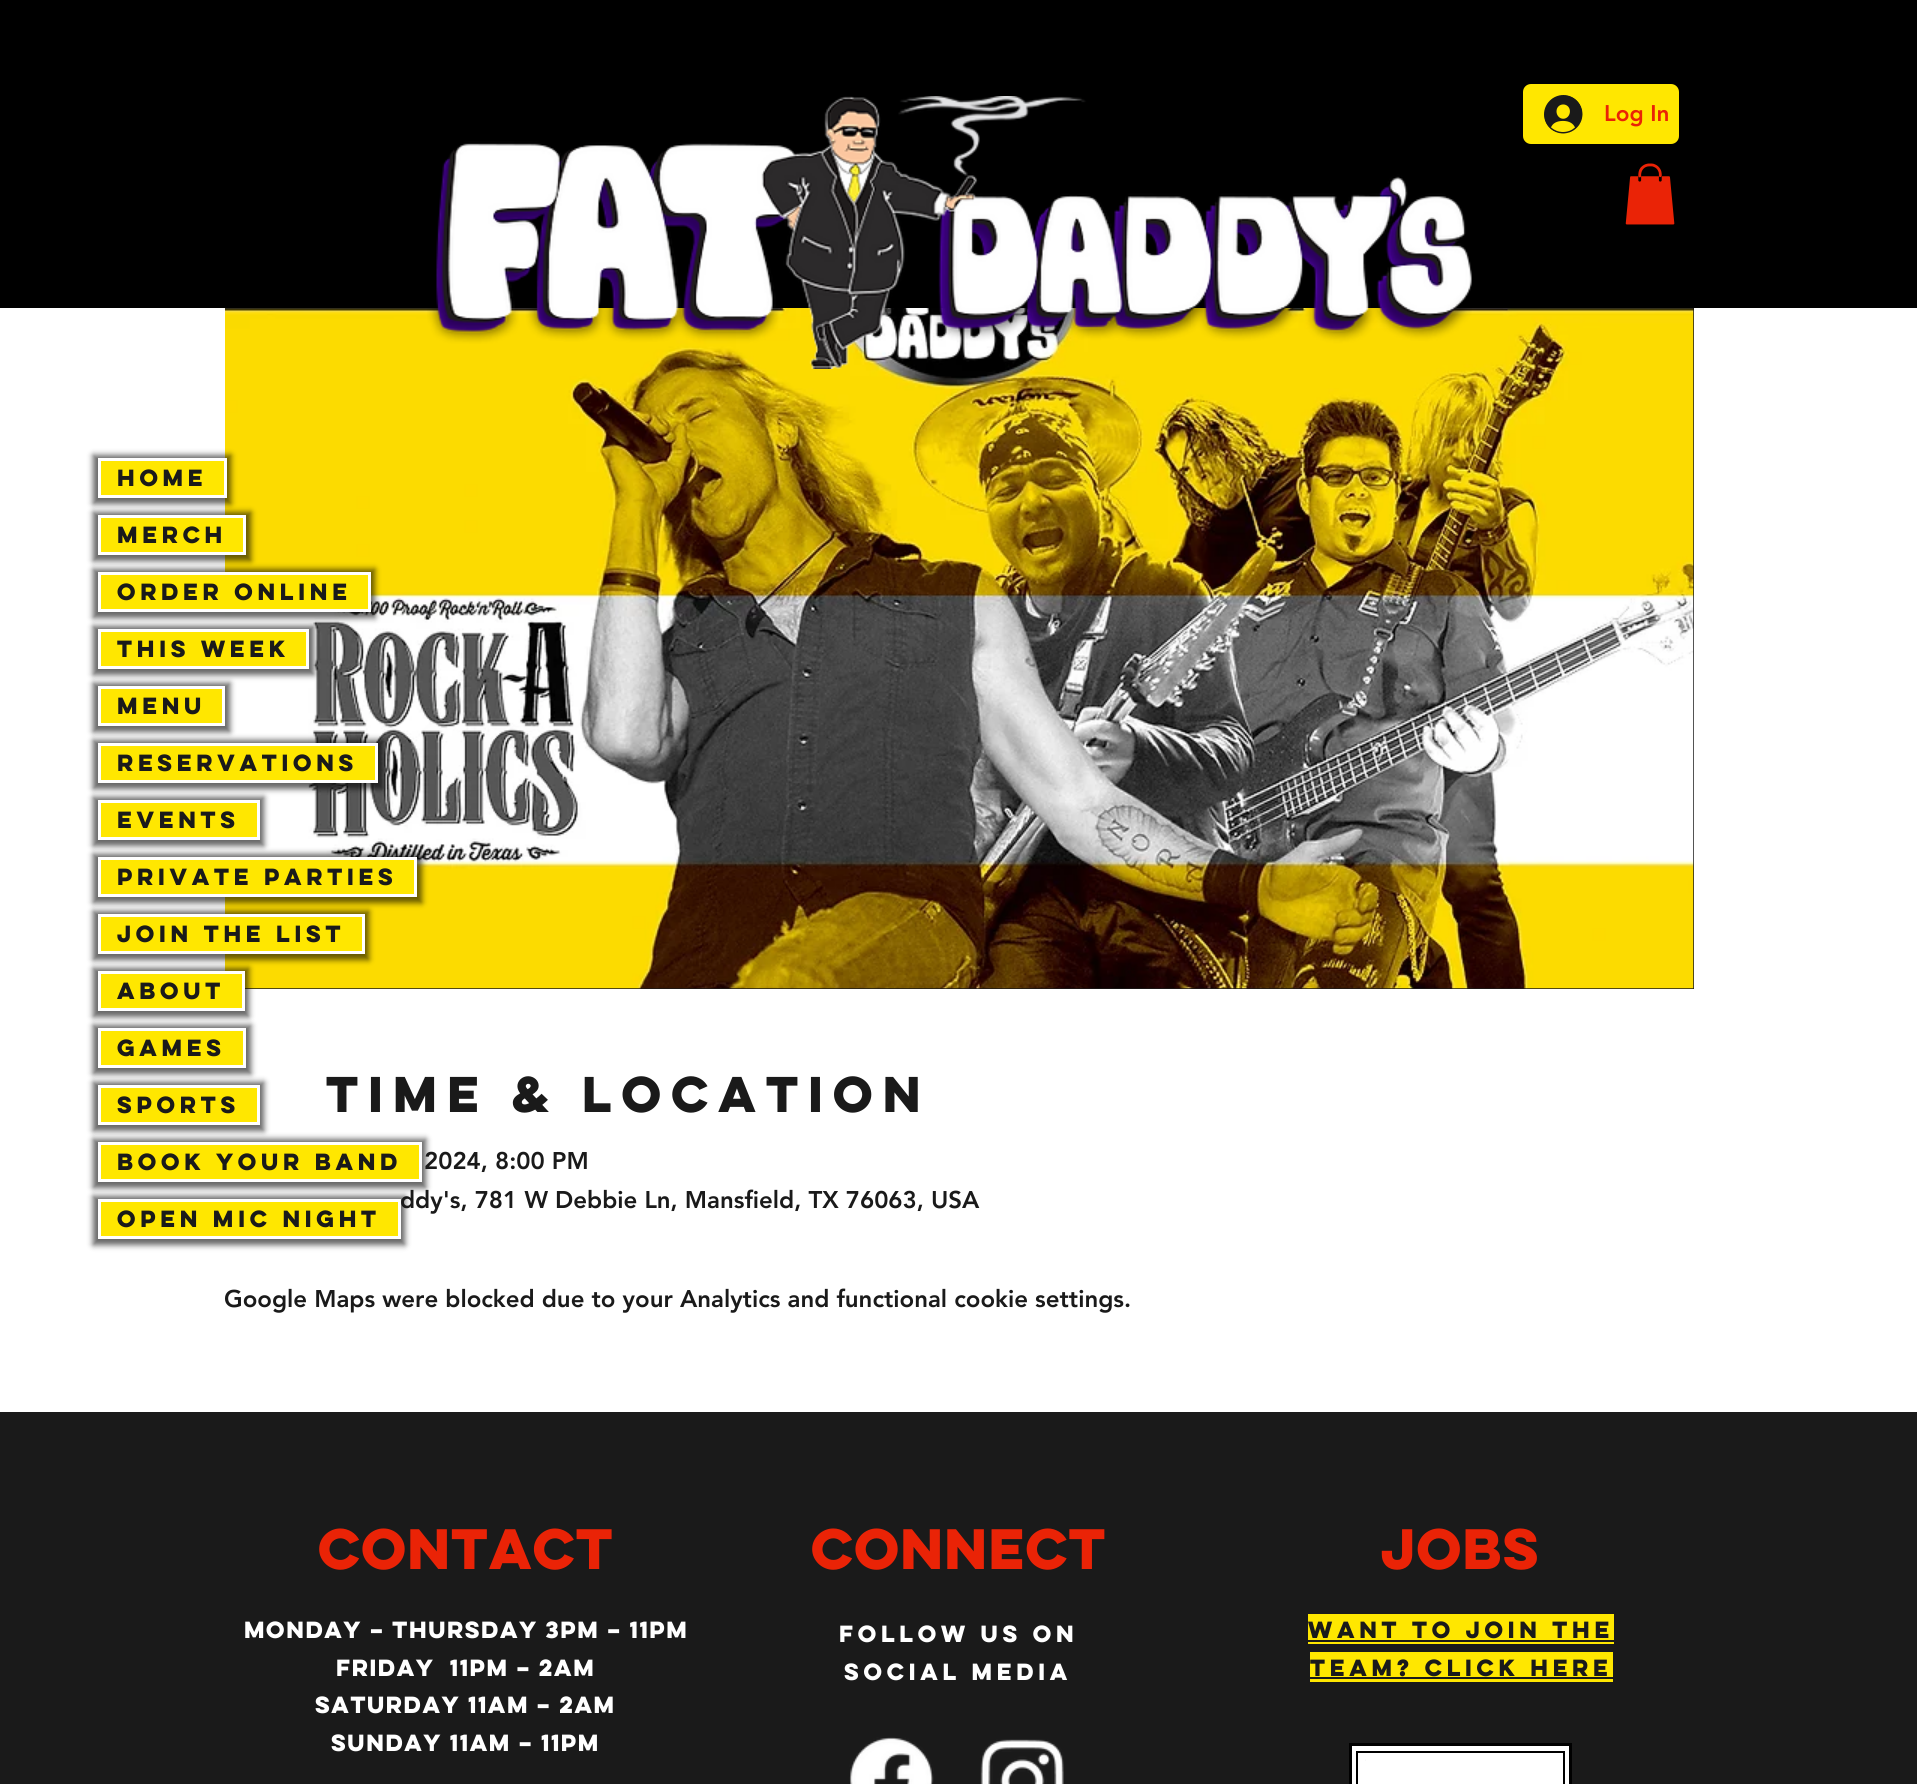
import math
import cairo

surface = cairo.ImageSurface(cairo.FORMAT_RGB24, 1917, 1784)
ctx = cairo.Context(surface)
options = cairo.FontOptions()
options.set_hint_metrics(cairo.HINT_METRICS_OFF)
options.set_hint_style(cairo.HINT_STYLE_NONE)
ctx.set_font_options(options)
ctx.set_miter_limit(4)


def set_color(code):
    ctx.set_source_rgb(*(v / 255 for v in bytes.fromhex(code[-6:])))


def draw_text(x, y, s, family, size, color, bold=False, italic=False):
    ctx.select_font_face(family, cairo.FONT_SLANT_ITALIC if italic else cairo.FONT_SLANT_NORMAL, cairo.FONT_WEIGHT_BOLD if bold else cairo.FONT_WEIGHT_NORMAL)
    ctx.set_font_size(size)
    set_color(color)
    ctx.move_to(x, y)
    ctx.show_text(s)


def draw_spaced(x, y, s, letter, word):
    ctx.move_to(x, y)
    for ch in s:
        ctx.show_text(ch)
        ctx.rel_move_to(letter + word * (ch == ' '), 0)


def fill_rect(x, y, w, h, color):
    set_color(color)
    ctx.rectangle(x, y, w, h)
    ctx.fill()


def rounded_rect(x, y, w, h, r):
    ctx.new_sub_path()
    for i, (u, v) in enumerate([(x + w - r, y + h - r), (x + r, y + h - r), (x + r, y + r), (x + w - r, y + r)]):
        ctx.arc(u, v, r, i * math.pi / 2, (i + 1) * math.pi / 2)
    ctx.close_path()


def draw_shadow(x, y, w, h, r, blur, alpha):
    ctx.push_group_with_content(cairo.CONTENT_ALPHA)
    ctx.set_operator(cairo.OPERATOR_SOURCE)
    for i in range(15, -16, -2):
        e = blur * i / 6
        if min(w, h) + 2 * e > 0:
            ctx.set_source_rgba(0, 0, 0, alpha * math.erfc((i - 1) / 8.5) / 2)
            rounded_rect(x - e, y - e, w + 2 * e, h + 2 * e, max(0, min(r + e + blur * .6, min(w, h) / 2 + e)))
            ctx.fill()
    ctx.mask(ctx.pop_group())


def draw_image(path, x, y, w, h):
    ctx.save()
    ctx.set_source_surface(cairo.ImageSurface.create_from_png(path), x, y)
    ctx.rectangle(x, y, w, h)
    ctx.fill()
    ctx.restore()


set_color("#ffffff")
ctx.paint()
fill_rect(0, 0, 1917, 308, "#000000")
fill_rect(245, 308, 1449, 681, "#1a1a1a")
draw_image("assets/img4.png", 225, 308, 1469, 681)
draw_image("assets/img1.png", 427, 96, 1045, 273)
set_color("#ffe700")
rounded_rect(1523, 84, 156, 60, 8)
ctx.fill()
draw_image("assets/img2.png", 1544, 95, 39, 39)
draw_text(1604, 121, "Log In", "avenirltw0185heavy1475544 Black", 22.5, "#ea2306")
draw_image("assets/img3.png", 1625, 163, 50, 62)
set_color("#000000")
draw_shadow(93, 455, 138, 49, 0, 3, 0.6)
set_color("#ffe700")
ctx.rectangle(99.5, 459.5, 126, 37)
ctx.fill_preserve()
set_color("#ffffff")
ctx.set_line_width(3)
ctx.stroke()
draw_text(117, 486, "Home", "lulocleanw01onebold", 21, "#1a1a1a", bold=True)
set_color("#000000")
draw_shadow(93, 512, 158, 49, 0, 3, 0.6)
set_color("#ffe700")
ctx.rectangle(99.5, 516.5, 145, 37)
ctx.fill_preserve()
set_color("#ffffff")
ctx.stroke()
draw_text(117, 543, "Merch", "lulocleanw01onebold", 21, "#1a1a1a", bold=True)
set_color("#000000")
draw_shadow(93, 569, 282, 49, 0, 3, 0.6)
set_color("#ffe700")
ctx.rectangle(99.5, 573.5, 270, 37)
ctx.fill_preserve()
set_color("#ffffff")
ctx.stroke()
draw_text(117, 600, "Order Online", "lulocleanw01onebold", 21, "#1a1a1a", bold=True)
set_color("#000000")
draw_shadow(93, 626, 221, 49, 0, 3, 0.6)
set_color("#ffe700")
ctx.rectangle(99.5, 630.5, 208, 37)
ctx.fill_preserve()
set_color("#ffffff")
ctx.stroke()
draw_text(117, 657, "This Week", "lulocleanw01onebold", 21, "#1a1a1a", bold=True)
set_color("#000000")
draw_shadow(93, 683, 137, 49, 0, 3, 0.6)
set_color("#ffe700")
ctx.rectangle(99.5, 687.5, 124, 37)
ctx.fill_preserve()
set_color("#ffffff")
ctx.stroke()
draw_text(117, 714, "Menu", "lulocleanw01onebold", 21, "#1a1a1a", bold=True)
set_color("#000000")
draw_shadow(93, 740, 290, 49, 0, 3, 0.6)
set_color("#ffe700")
ctx.rectangle(99.5, 744.5, 277, 37)
ctx.fill_preserve()
set_color("#ffffff")
ctx.stroke()
draw_text(117, 771, "Reservations", "lulocleanw01onebold", 21, "#1a1a1a", bold=True)
set_color("#000000")
draw_shadow(93, 797, 171, 49, 0, 3, 0.6)
set_color("#ffe700")
ctx.rectangle(99.5, 801.5, 159, 37)
ctx.fill_preserve()
set_color("#ffffff")
ctx.stroke()
draw_text(117, 828, "Events", "lulocleanw01onebold", 21, "#1a1a1a", bold=True)
set_color("#000000")
draw_shadow(93, 854, 329, 49, 0, 3, 0.6)
set_color("#ffe700")
ctx.rectangle(99.5, 858.5, 316, 37)
ctx.fill_preserve()
set_color("#ffffff")
ctx.stroke()
draw_text(117, 885, "Private Parties", "lulocleanw01onebold", 21, "#1a1a1a", bold=True)
set_color("#000000")
draw_shadow(93, 911, 276, 49, 0, 3, 0.6)
set_color("#ffe700")
ctx.rectangle(99.5, 915.5, 264, 37)
ctx.fill_preserve()
set_color("#ffffff")
ctx.stroke()
draw_text(117, 942, "Join The List", "lulocleanw01onebold", 21, "#1a1a1a", bold=True)
set_color("#000000")
draw_shadow(93, 968, 156, 49, 0, 3, 0.6)
set_color("#ffe700")
ctx.rectangle(99.5, 972.5, 144, 37)
ctx.fill_preserve()
set_color("#ffffff")
ctx.stroke()
draw_text(117, 999, "About", "lulocleanw01onebold", 21, "#1a1a1a", bold=True)
set_color("#000000")
draw_shadow(93, 1025, 158, 49, 0, 3, 0.6)
set_color("#ffe700")
ctx.rectangle(99.5, 1029.5, 145, 37)
ctx.fill_preserve()
set_color("#ffffff")
ctx.stroke()
draw_text(117, 1056, "Games", "lulocleanw01onebold", 21, "#1a1a1a", bold=True)
set_color("#000000")
draw_shadow(93, 1082, 171, 49, 0, 3, 0.6)
set_color("#ffe700")
ctx.rectangle(99.5, 1086.5, 159, 37)
ctx.fill_preserve()
set_color("#ffffff")
ctx.stroke()
draw_text(117, 1113, "Sports", "lulocleanw01onebold", 21, "#1a1a1a", bold=True)
set_color("#000000")
draw_shadow(93, 1139, 333, 49, 0, 3, 0.6)
set_color("#ffe700")
ctx.rectangle(99.5, 1143.5, 321, 37)
ctx.fill_preserve()
set_color("#ffffff")
ctx.stroke()
draw_text(117, 1170, "Book Your Band", "lulocleanw01onebold", 21, "#1a1a1a", bold=True)
set_color("#000000")
draw_shadow(93, 1196, 312, 49, 0, 3, 0.6)
set_color("#ffe700")
ctx.rectangle(99.5, 1200.5, 300, 37)
ctx.fill_preserve()
set_color("#ffffff")
ctx.stroke()
draw_text(117, 1227, "Open Mic Night", "lulocleanw01onebold", 21, "#1a1a1a", bold=True)
draw_text(326, 1112, "Time & Location", "lulocleanw01onebold", 45, "#1a1a1a", bold=True)
draw_text(424, 1169, "2024, 8:00 PM", "avenirltw0185heavy1475544 Black", 24, "#1a1a1a")
draw_text(400, 1208, "ddy's, 781 W Debbie Ln, Mansfield, TX 76063, USA", "avenirltw0185heavy1475544 Black", 24, "#1a1a1a")
draw_text(224, 1307, "Google Maps were blocked due to your Analytics and functional cookie settings.", "avenirltw0185heavy1475544 Black", 24, "#1a1a1a")
fill_rect(0, 1412, 1917, 372, "#1a1a1a")
ctx.select_font_face("lulocleanw01onebold", cairo.FONT_SLANT_NORMAL, cairo.FONT_WEIGHT_BOLD)
ctx.set_font_size(51)
set_color("#ea2306")
draw_spaced(318, 1569, "CONTACT", -10.25, 0)
draw_spaced(811, 1569, "Connect", -10.25, 0)
draw_spaced(1381, 1569, "JOBS", -10.25, 0)
ctx.set_font_size(21)
set_color("#ffffff")
draw_spaced(244, 1638, "MONDAY – Thursday 3PM – 11pm", -3.15, 0)
draw_spaced(336, 1676, "Friday  11PM – 2am", -3.15, 0)
draw_spaced(315, 1713, "SATURDAY 11AM – 2am", -3.15, 0)
draw_spaced(331, 1751, "SUNDAY 11AM – 11pm", -3.15, 0)
draw_text(839, 1642, "Follow us on", "lulocleanw01onebold", 21, "#ffffff", bold=True)
draw_text(844, 1680, "social media", "lulocleanw01onebold", 21, "#ffffff", bold=True)
fill_rect(1308, 1614, 306, 30, "#ffe700")
draw_text(1308, 1638, "WANT TO JOIN THE", "lulocleanw01onebold", 21, "#1a1a1a", bold=True)
fill_rect(1308, 1640, 306, 2, "#1a1a1a")
fill_rect(1310, 1652, 303, 30, "#ffe700")
draw_text(1310, 1676, "TEAM? Click Here", "lulocleanw01onebold", 21, "#1a1a1a", bold=True)
fill_rect(1310, 1677, 303, 2, "#1a1a1a")
draw_image("assets/img5.png", 849, 1737, 85, 47)
draw_image("assets/img6.png", 980, 1739, 84, 45)
set_color("#ffffff")
ctx.rectangle(1350.5, 1744.5, 220, 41)
ctx.fill_preserve()
set_color("#000000")
ctx.stroke()
draw_image("assets/img7.png", 1365, 1759, 1, 2)
ctx.rectangle(1357, 1752, 207, 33)
ctx.set_line_width(2)
ctx.stroke()
draw_image("assets/img8.png", 4, 1409, 1900, 3)
surface.write_to_png("output.png")
